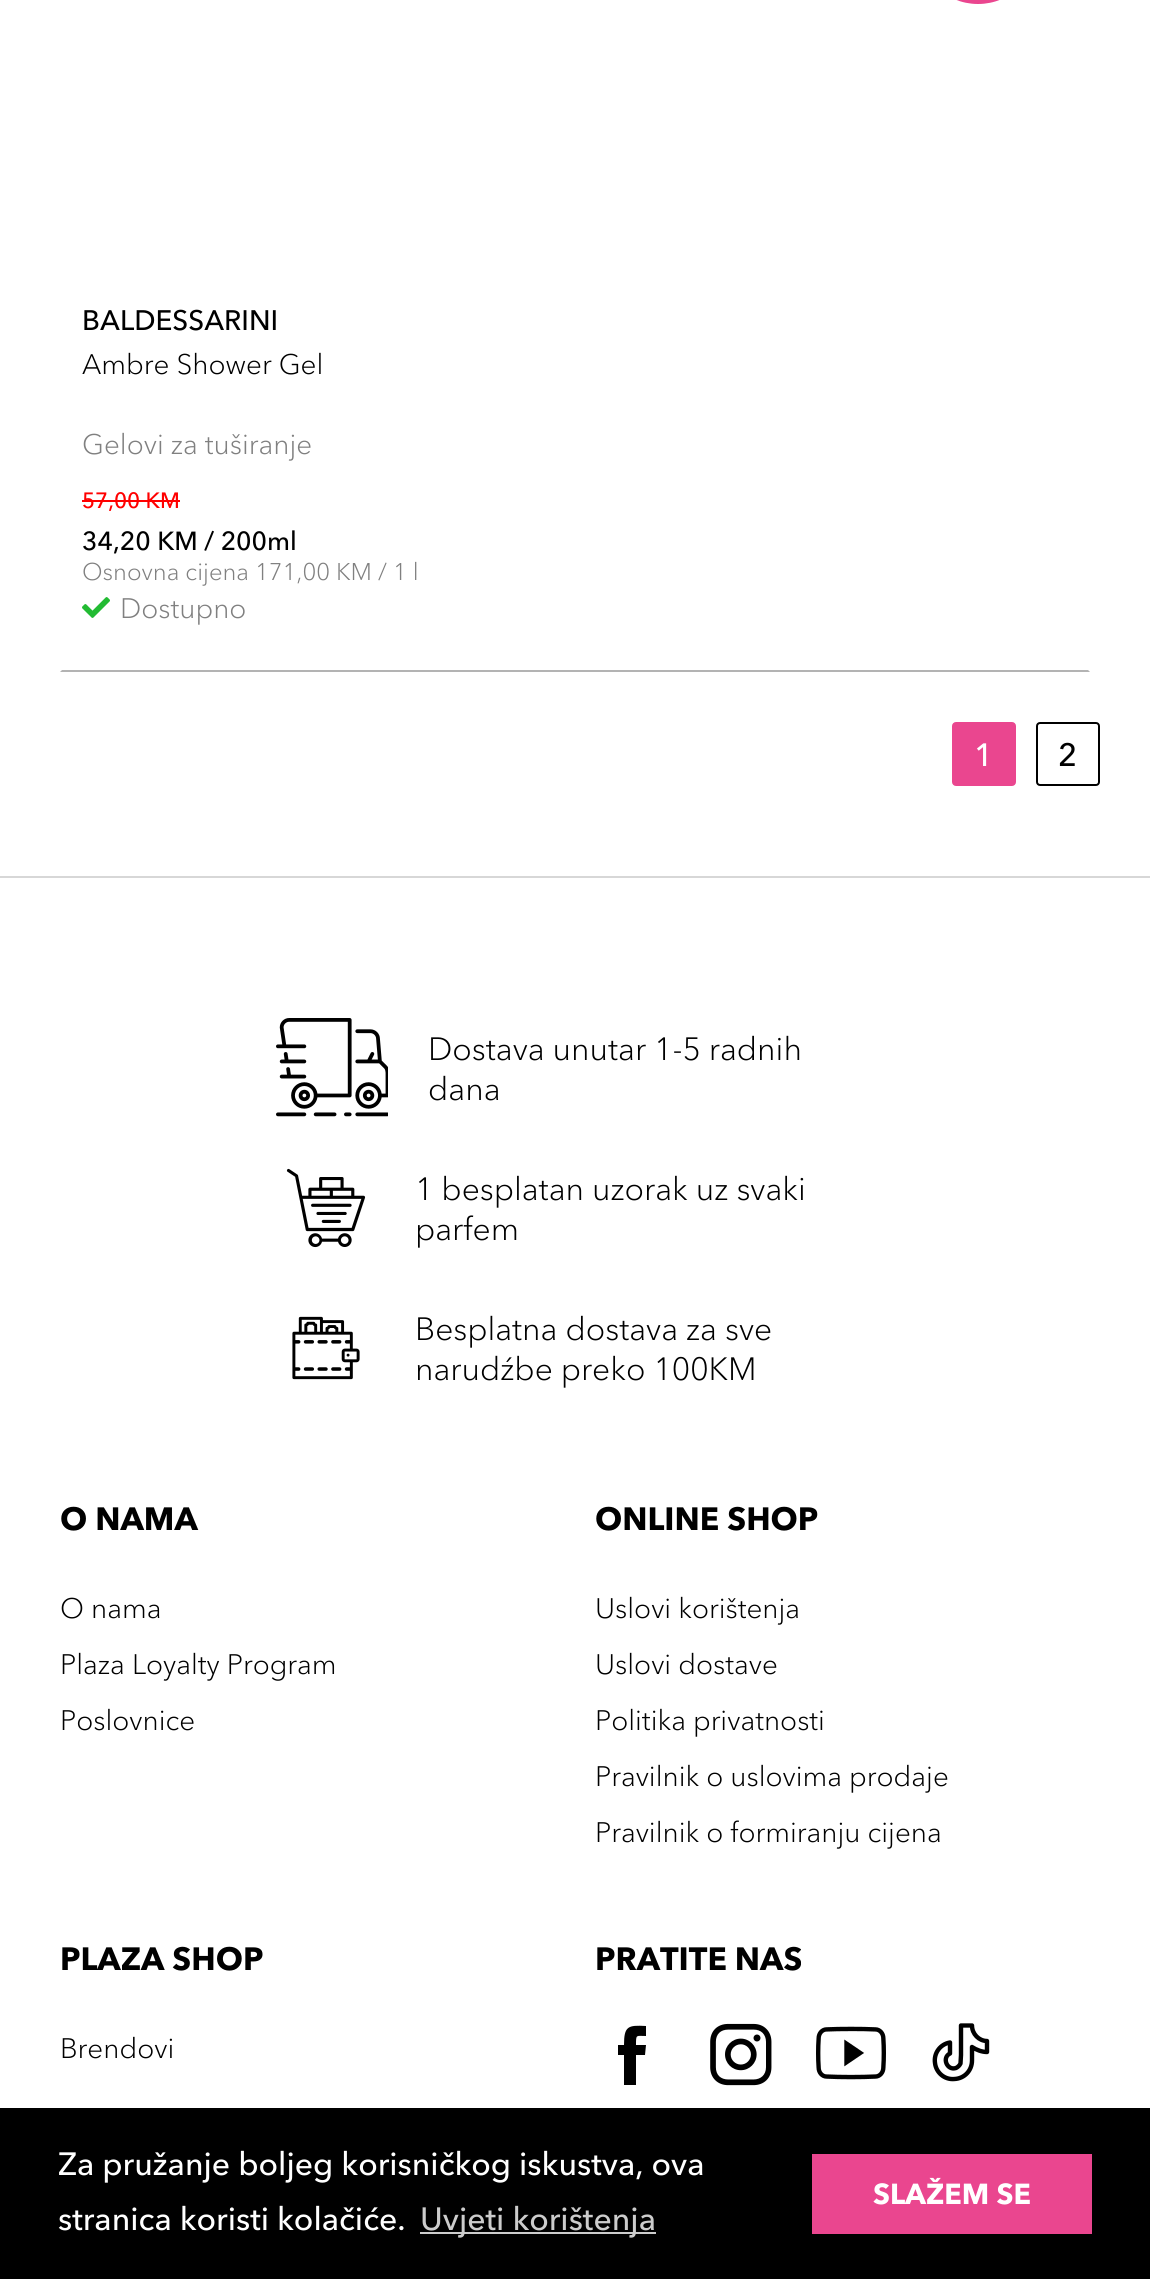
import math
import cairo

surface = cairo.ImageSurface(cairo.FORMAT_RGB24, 1150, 2279)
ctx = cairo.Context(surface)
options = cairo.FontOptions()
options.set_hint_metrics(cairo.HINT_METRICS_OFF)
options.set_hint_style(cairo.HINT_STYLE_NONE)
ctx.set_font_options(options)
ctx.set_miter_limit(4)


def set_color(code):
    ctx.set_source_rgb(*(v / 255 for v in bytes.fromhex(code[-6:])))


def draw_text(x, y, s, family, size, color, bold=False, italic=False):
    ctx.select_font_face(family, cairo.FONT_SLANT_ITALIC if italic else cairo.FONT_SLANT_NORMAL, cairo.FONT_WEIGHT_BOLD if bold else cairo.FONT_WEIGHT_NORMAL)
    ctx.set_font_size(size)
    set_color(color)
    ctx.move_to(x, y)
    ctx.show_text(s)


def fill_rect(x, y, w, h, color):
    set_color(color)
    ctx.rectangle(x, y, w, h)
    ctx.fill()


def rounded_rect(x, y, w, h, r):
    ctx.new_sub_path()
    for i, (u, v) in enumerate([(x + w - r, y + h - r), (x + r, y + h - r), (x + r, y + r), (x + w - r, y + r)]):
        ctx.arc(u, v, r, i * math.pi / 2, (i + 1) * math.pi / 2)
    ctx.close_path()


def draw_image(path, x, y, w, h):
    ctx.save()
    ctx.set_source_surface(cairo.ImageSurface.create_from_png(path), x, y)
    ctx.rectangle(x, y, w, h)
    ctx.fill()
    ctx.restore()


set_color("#ffffff")
ctx.paint()
set_color("#b3b3b3")
ctx.new_path()
ctx.move_to(1090, 672)
ctx.line_to(60, 672)
ctx.line_to(62, 670)
ctx.line_to(1088, 670)
ctx.close_path()
ctx.fill()
set_color("#ea468f")
rounded_rect(918, -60, 120, 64, 60)
ctx.fill()
draw_text(82, 330, "BALDESSARINI", "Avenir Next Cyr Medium", 28, "#000000")
draw_text(82, 374, "Ambre Shower Gel", "Avenir Next Cyr Light", 28, "#000000")
draw_text(82, 454, "Gelovi za tuširanje", "Avenir Next Cyr Light", 28, "#808080")
draw_text(82, 508, "57,00 KM", "Avenir Next Cyr Medium", 22, "#ff0000")
fill_rect(82, 500, 98, 2, "#ff0000")
draw_text(82, 550, "34,20 KM / 200ml", "Avenir Next Cyr Medium", 26, "#000000")
draw_text(82, 580, "Osnovna cijena 171,00 KM / 1 l", "Avenir Next Cyr Light", 24, "#808080")
draw_image("assets/img1.png", 82, 597, 28, 21)
draw_text(120, 618, "Dostupno", "Avenir Next Cyr Light", 28, "#808080")
set_color("#ea468f")
rounded_rect(953, 723, 62, 62, 3)
ctx.fill_preserve()
ctx.stroke()
draw_text(974, 766, "1", "Avenir Next Cyr Medium", 32, "#ffffff")
rounded_rect(1037, 723, 62, 62, 3)
set_color("#000000")
ctx.stroke()
draw_text(1058, 766, "2", "Avenir Next Cyr Medium", 32, "#000000")
fill_rect(0, 876, 1150, 2, "#d7d7d7")
draw_image("assets/img2.png", 276, 1018, 112, 99)
draw_text(428, 1060, "Dostava unutar 1-5 radnih", "Avenir Next Cyr Light", 32, "#000000")
draw_text(428, 1100, "dana", "Avenir Next Cyr Light", 32, "#000000")
draw_image("assets/img3.png", 286, 1168, 80, 80)
draw_text(415, 1200, "1 besplatan uzorak uz svaki", "Avenir Next Cyr Light", 32, "#000000")
draw_text(415, 1240, "parfem", "Avenir Next Cyr Light", 32, "#000000")
draw_image("assets/img4.png", 292, 1316, 68, 64)
draw_text(415, 1340, "Besplatna dostava za sve", "Avenir Next Cyr Light", 32, "#000000")
draw_text(415, 1380, "narudźbe preko 100KM", "Avenir Next Cyr Light", 32, "#000000")
draw_text(60, 1530, "O NAMA", "Avenir Next Cyr", 32, "#000000", bold=True)
draw_text(60, 1618, "O nama", "Avenir Next Cyr Light", 28, "#000000")
draw_text(60, 1674, "Plaza Loyalty Program", "Avenir Next Cyr Light", 28, "#000000")
draw_text(60, 1730, "Poslovnice", "Avenir Next Cyr Light", 28, "#000000")
draw_text(595, 1530, "ONLINE SHOP", "Avenir Next Cyr", 32, "#000000", bold=True)
draw_text(595, 1618, "Uslovi korištenja", "Avenir Next Cyr Light", 28, "#000000")
draw_text(595, 1674, "Uslovi dostave", "Avenir Next Cyr Light", 28, "#000000")
draw_text(595, 1730, "Politika privatnosti", "Avenir Next Cyr Light", 28, "#000000")
draw_text(595, 1786, "Pravilnik o uslovima prodaje", "Avenir Next Cyr Light", 28, "#000000")
draw_text(595, 1842, "Pravilnik o formiranju cijena", "Avenir Next Cyr Light", 28, "#000000")
draw_text(60, 1970, "PLAZA SHOP", "Avenir Next Cyr", 32, "#000000", bold=True)
draw_text(60, 2058, "Brendovi", "Avenir Next Cyr Light", 28, "#000000")
draw_text(595, 1970, "PRATITE NAS", "Avenir Next Cyr", 32, "#000000", bold=True)
ctx.new_path()
ctx.move_to(646, 2045)
ctx.line_to(636, 2045)
ctx.curve_to(636, 2034, 636, 2036, 646, 2036)
ctx.line_to(646, 2026)
ctx.curve_to(628, 2025, 624, 2026, 624, 2045)
ctx.line_to(618, 2045)
ctx.line_to(618, 2055)
ctx.line_to(624, 2055)
ctx.line_to(624, 2085)
ctx.line_to(636, 2085)
ctx.line_to(636, 2055)
ctx.line_to(645, 2055)
ctx.close_path()
ctx.fill()
draw_image("assets/img5.png", 710, 2023, 62, 63)
draw_image("assets/img6.png", 816, 2026, 70, 54)
ctx.new_path()
ctx.move_to(972, 2047)
ctx.curve_to(976.5, 2050, 982, 2052, 987, 2052)
ctx.line_to(987, 2041)
ctx.curve_to(979, 2041, 972, 2034, 972, 2025.5)
ctx.line_to(961, 2025.5)
ctx.line_to(961, 2055)
ctx.line_to(960.5, 2063.5)
ctx.curve_to(959.5, 2065.5, 958, 2067, 956, 2068)
ctx.curve_to(947, 2071, 941.5, 2057.5, 950, 2053.5)
ctx.line_to(950, 2042.5)
ctx.curve_to(940.5, 2044, 933.5, 2053, 935, 2063)
ctx.curve_to(936, 2072.5, 944.5, 2080, 954.5, 2079)
ctx.curve_to(964.5, 2078.5, 972, 2070.5, 972, 2060.5)
ctx.close_path()
ctx.set_line_width(4.4)
ctx.set_line_cap(cairo.LINE_CAP_ROUND)
ctx.set_line_join(cairo.LINE_JOIN_ROUND)
ctx.stroke()
fill_rect(0, 2108, 1150, 171, "#000000")
draw_text(58, 2175, "Za pružanje boljeg korisničkog iskustva, ova", "Avenir Next Cyr Medium", 32, "#ffffff")
draw_text(58, 2230, "stranica koristi kolačiće.", "Avenir Next Cyr Medium", 32, "#ffffff")
fill_rect(420, 2232, 236, 2, "#cccccc")
draw_text(420, 2230, "Uvjeti korištenja", "Avenir Next Cyr Medium", 32, "#cccccc")
fill_rect(812, 2154, 280, 80, "#ea468f")
draw_text(873, 2204, "SLAŽEM SE", "Avenir Next Cyr", 28.75, "#ffffff", bold=True)
surface.write_to_png("output.png")
